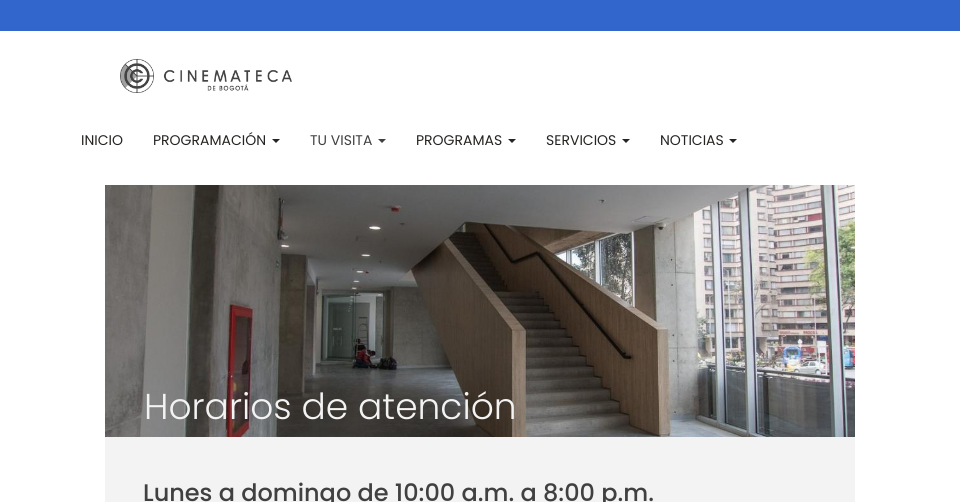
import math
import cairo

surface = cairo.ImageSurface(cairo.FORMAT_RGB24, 960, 502)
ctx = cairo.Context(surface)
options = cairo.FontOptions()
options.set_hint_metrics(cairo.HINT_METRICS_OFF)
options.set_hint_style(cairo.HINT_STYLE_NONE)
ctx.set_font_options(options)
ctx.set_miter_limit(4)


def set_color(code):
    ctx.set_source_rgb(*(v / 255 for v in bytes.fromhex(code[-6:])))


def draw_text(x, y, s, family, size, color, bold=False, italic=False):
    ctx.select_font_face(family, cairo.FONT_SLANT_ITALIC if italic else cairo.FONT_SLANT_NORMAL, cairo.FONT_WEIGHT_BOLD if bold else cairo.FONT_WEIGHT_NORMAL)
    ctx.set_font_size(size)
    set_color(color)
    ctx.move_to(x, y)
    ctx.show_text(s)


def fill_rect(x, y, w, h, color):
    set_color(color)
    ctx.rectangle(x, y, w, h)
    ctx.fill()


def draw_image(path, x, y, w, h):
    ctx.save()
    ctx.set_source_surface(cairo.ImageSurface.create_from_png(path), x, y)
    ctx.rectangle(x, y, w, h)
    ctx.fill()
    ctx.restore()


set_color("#ffffff")
ctx.paint()
fill_rect(0, 0, 960, 31, "#3366cc")
draw_image("assets/img1.png", 120, 59, 172, 34)
draw_text(81, 145, "INICIO", "Poppins", 14, "#262422")
draw_text(153, 145, "PROGRAMACIÓN", "Poppins", 14, "#262422")
ctx.new_path()
ctx.move_to(272, 139)
ctx.line_to(280, 139)
ctx.line_to(276, 143)
ctx.close_path()
ctx.fill()
draw_text(310, 145, "TU VISITA", "Poppins", 14, "#404041")
ctx.new_path()
ctx.move_to(378, 139)
ctx.line_to(386, 139)
ctx.line_to(382, 143)
ctx.close_path()
ctx.fill()
draw_text(416, 145, "PROGRAMAS", "Poppins", 14, "#262422")
ctx.new_path()
ctx.move_to(508, 139)
ctx.line_to(516, 139)
ctx.line_to(512, 143)
ctx.close_path()
ctx.fill()
draw_text(546, 145, "SERVICIOS", "Poppins", 14, "#262422")
ctx.new_path()
ctx.move_to(622, 139)
ctx.line_to(630, 139)
ctx.line_to(626, 143)
ctx.close_path()
ctx.fill()
draw_text(660, 145, "NOTICIAS", "Poppins", 14, "#262422")
ctx.new_path()
ctx.move_to(729, 139)
ctx.line_to(737, 139)
ctx.line_to(733, 143)
ctx.close_path()
ctx.fill()
draw_image("assets/img2.png", 105, 185, 750, 252)
draw_text(144, 419, "Horarios de atención", "Poppins Light", 36, "#f3f3f3")
fill_rect(105, 437, 750, 65, "#f3f3f3")
draw_text(143, 501, "Lunes a domingo de 10:00 a.m. a 8:00 p.m.", "Poppins Medium", 24, "#404041")
surface.write_to_png("output.png")
